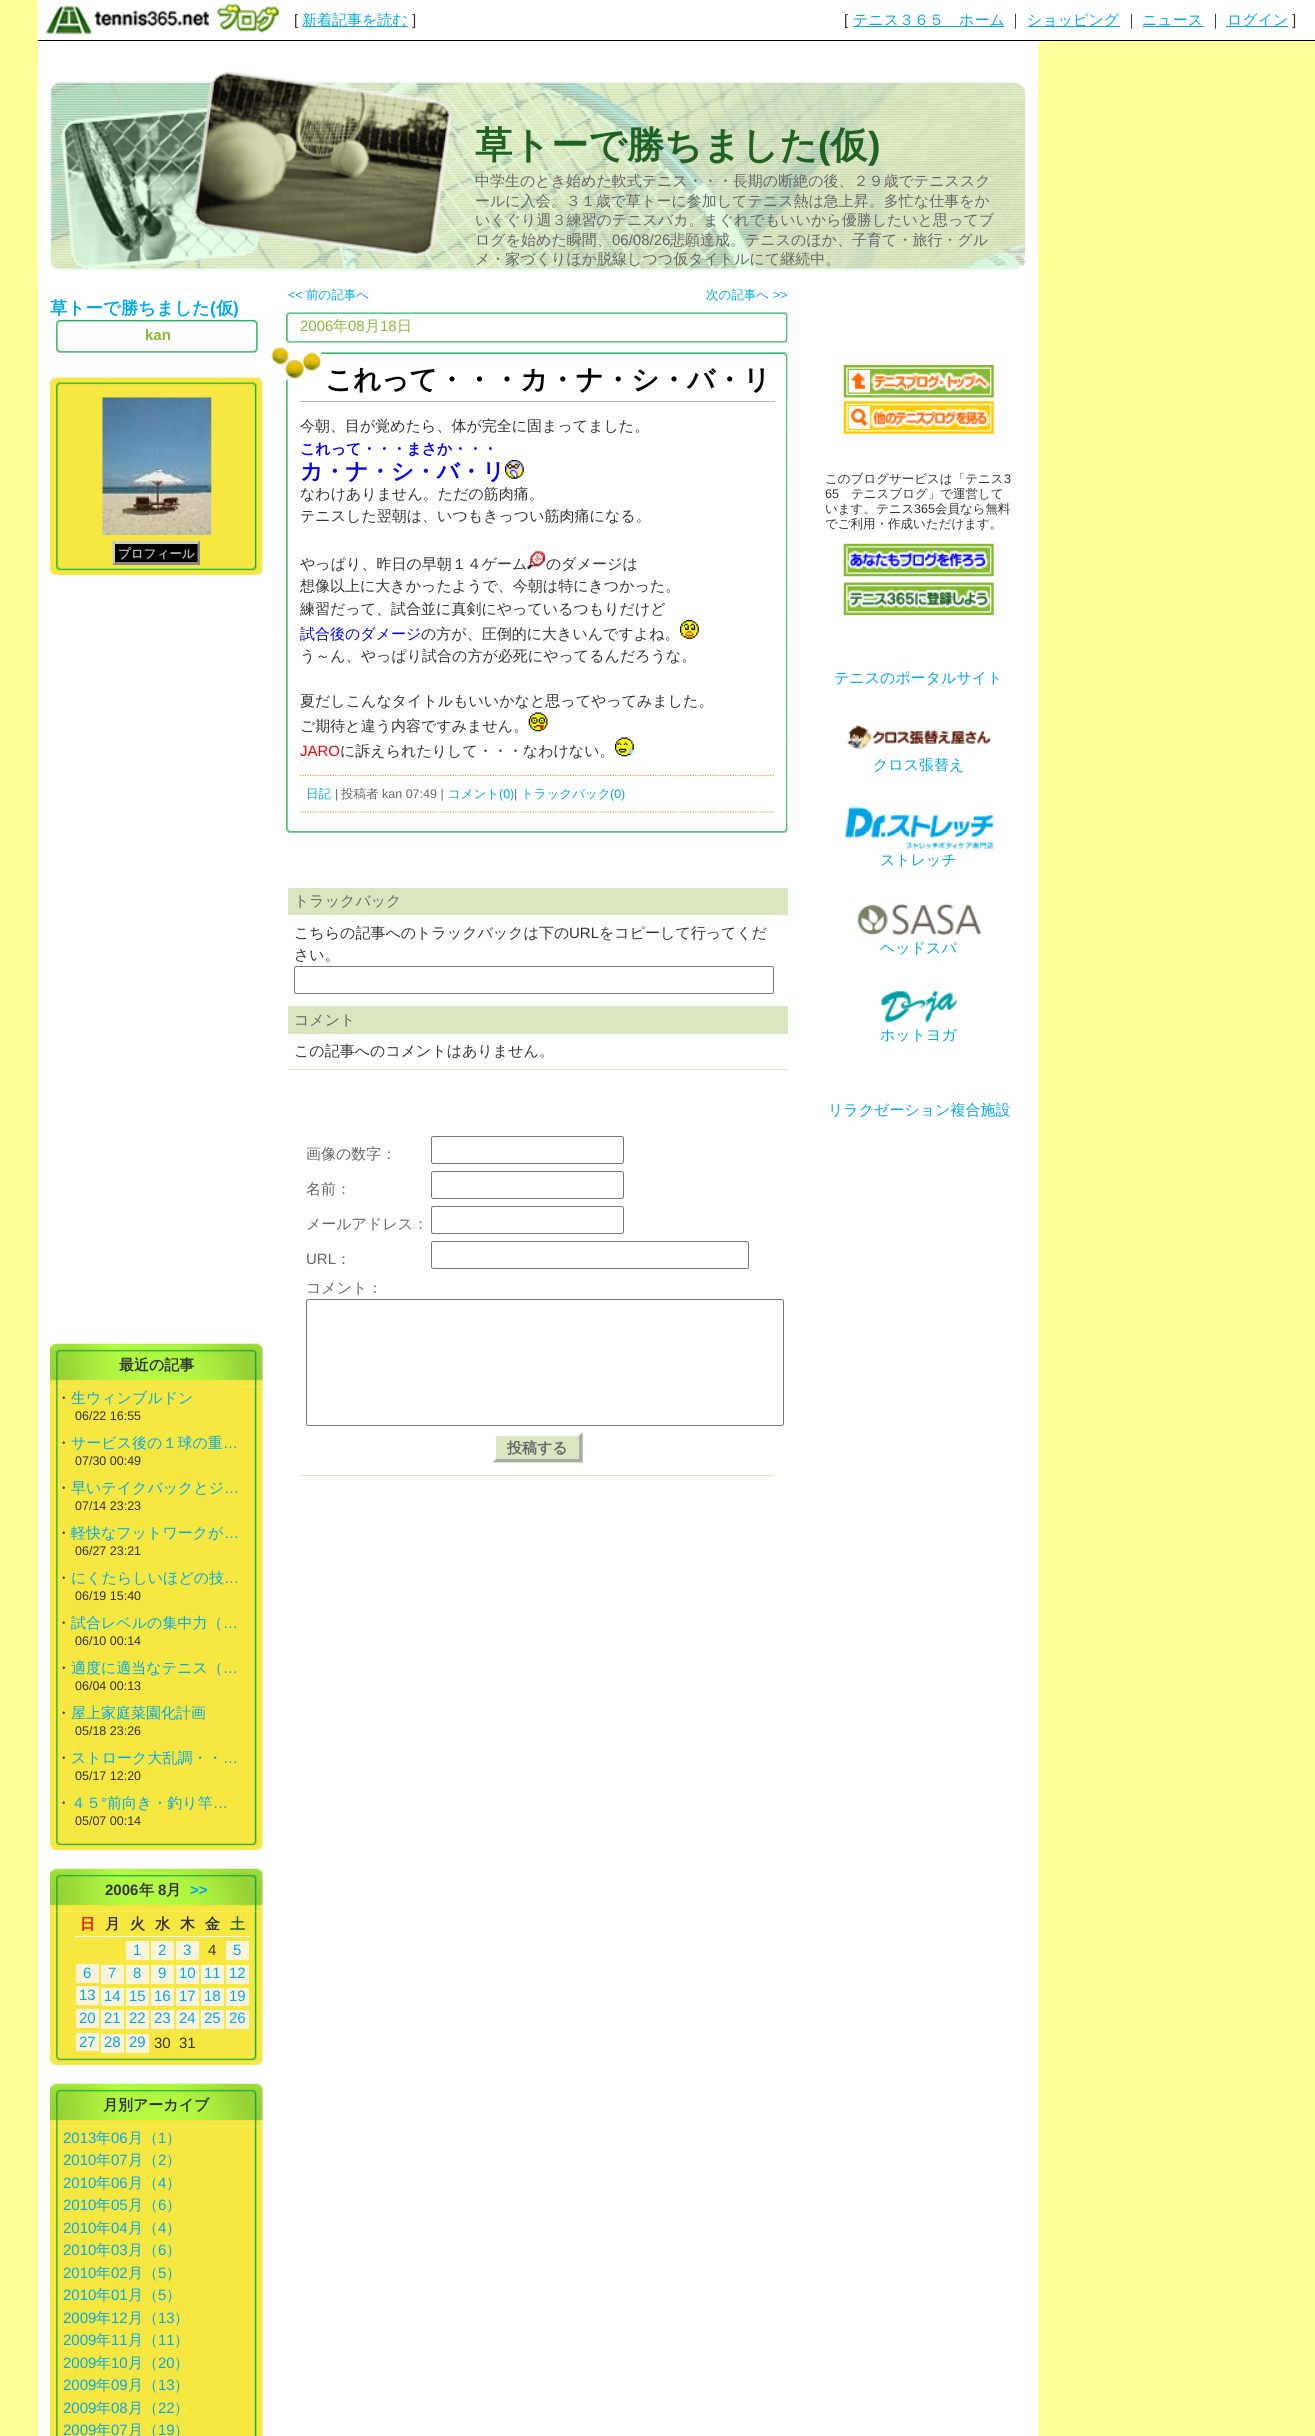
import math
import cairo

surface = cairo.ImageSurface(cairo.FORMAT_RGB24, 1315, 2436)
ctx = cairo.Context(surface)
options = cairo.FontOptions()
options.set_hint_metrics(cairo.HINT_METRICS_OFF)
options.set_hint_style(cairo.HINT_STYLE_NONE)
ctx.set_font_options(options)
ctx.set_miter_limit(4)


def set_color(code):
    ctx.set_source_rgb(*(v / 255 for v in bytes.fromhex(code[-6:])))


def draw_text(x, y, s, family, size, color, bold=False, italic=False):
    ctx.select_font_face(family, cairo.FONT_SLANT_ITALIC if italic else cairo.FONT_SLANT_NORMAL, cairo.FONT_WEIGHT_BOLD if bold else cairo.FONT_WEIGHT_NORMAL)
    ctx.set_font_size(size)
    set_color(color)
    ctx.move_to(x, y)
    ctx.show_text(s)


def fill_rect(x, y, w, h, color):
    set_color(color)
    ctx.rectangle(x, y, w, h)
    ctx.fill()


def rounded_rect(x, y, w, h, r):
    ctx.new_sub_path()
    for i, (u, v) in enumerate([(x + w - r, y + h - r), (x + r, y + h - r), (x + r, y + r), (x + w - r, y + r)]):
        ctx.arc(u, v, r, i * math.pi / 2, (i + 1) * math.pi / 2)
    ctx.close_path()


def draw_image(path, x, y, w, h):
    ctx.save()
    ctx.set_source_surface(cairo.ImageSurface.create_from_png(path), x, y)
    ctx.rectangle(x, y, w, h)
    ctx.fill()
    ctx.restore()


set_color("#ffff99")
ctx.paint()
fill_rect(279, 0, 1036, 40, "#ffffff")
fill_rect(38, 40, 1277, 1, "#000000")
draw_image("assets/img1.png", 37, 0, 242, 40)
draw_text(294, 25, "[", "Liberation Sans", 15, "#333333")
fill_rect(303, 26, 105, 1, "#00a8ec")
draw_text(302, 25, "新着記事を読む", "WenQuanYi Zen Hei Medium", 15, "#00a8ec")
draw_text(412, 25, "]", "Liberation Sans", 15, "#333333")
draw_text(844, 25, "[", "Liberation Sans", 15, "#333333")
fill_rect(853, 26, 151, 1, "#00a8ec")
draw_text(853, 25, "テニス３６５　ホーム", "WenQuanYi Zen Hei Medium", 15, "#00a8ec")
draw_text(1008, 25, "｜", "WenQuanYi Zen Hei Medium", 15, "#333333")
fill_rect(1028, 26, 92, 1, "#00a8ec")
draw_text(1027, 25, "ショッピング", "WenQuanYi Zen Hei Medium", 15, "#00a8ec")
draw_text(1124, 25, "｜", "WenQuanYi Zen Hei Medium", 15, "#333333")
draw_text(1142, 25, "ニュース", "WenQuanYi Zen Hei Medium", 15, "#00a8ec")
fill_rect(1143, 26, 61, 1, "#00a8ec")
draw_text(1208, 25, "｜", "WenQuanYi Zen Hei Medium", 15, "#333333")
fill_rect(1226, 26, 62, 1, "#00a8ec")
draw_text(1227, 25, "ログイン", "WenQuanYi Zen Hei Medium", 15, "#00a8ec")
draw_text(1292, 25, "]", "Liberation Sans", 15, "#333333")
fill_rect(38, 41, 1000, 2395, "#ffffff")
draw_image("assets/img2.png", 37, 66, 989, 218)
draw_text(475, 158, "草トーで勝ちました", "WenQuanYi Zen Hei", 37.5, "#1f6224", bold=True)
draw_text(818, 158, "(", "Liberation Sans", 37.5, "#1f6224", bold=True)
draw_text(830, 158, "仮", "WenQuanYi Zen Hei", 37.5, "#1f6224", bold=True)
draw_text(868, 158, ")", "Liberation Sans", 37.5, "#1f6224", bold=True)
draw_text(475, 186, "中学生のとき始めた軟式テニス・・・長期の断絶の後、２９歳でテニススク", "WenQuanYi Zen Hei Medium", 15, "#666666")
draw_text(475, 206, "ールに入会。３１歳で草トーに参加してテニス熱は急上昇。多忙な仕事をか", "WenQuanYi Zen Hei Medium", 15, "#666666")
draw_text(475, 225, "いくぐり週３練習のテニスバカ。まぐれでもいいから優勝したいと思ってブ", "WenQuanYi Zen Hei Medium", 15, "#666666")
draw_text(475, 245, "ログを始めた瞬間、", "WenQuanYi Zen Hei Medium", 15, "#666666")
draw_text(612, 245, "06/08/26", "Liberation Sans", 15, "#666666")
draw_text(670, 245, "悲願達成。テニスのほか、子育て・旅行・グル", "WenQuanYi Zen Hei Medium", 15, "#666666")
draw_text(475, 264, "メ・家づくりほか脱線しつつ仮タイトルにて継続中。", "WenQuanYi Zen Hei Medium", 15, "#666666")
draw_text(50, 314, "草トーで勝ちました", "WenQuanYi Zen Hei", 17.5, "#00a8ec", bold=True)
draw_text(210, 314, "(", "Liberation Sans", 17.5, "#00a8ec", bold=True)
draw_text(216, 314, "仮", "WenQuanYi Zen Hei", 17.5, "#00a8ec", bold=True)
draw_text(233, 314, ")", "Liberation Sans", 17.5, "#00a8ec", bold=True)
draw_image("assets/img3.png", 56, 319, 202, 34)
draw_text(145, 340, "kan", "Liberation Sans", 15, "#86ba31", bold=True)
draw_image("assets/img4.png", 50, 377, 213, 188)
draw_image("assets/img5.png", 102, 397, 110, 138)
fill_rect(113, 541, 87, 24, "#000000")
draw_text(118, 558, "プロフィール", "WenQuanYi Zen Hei", 12.5, "#b6b6b6", bold=True)
set_color("#cccccc")
ctx.new_path()
ctx.move_to(112, 541)
ctx.line_to(200, 541)
ctx.line_to(198, 544)
ctx.line_to(115, 544)
ctx.close_path()
ctx.fill()
set_color("#888888")
ctx.new_path()
ctx.move_to(200, 541)
ctx.line_to(200, 565)
ctx.line_to(197.5, 562.5)
ctx.line_to(197.5, 544)
ctx.close_path()
ctx.fill()
ctx.new_path()
ctx.move_to(200, 565)
ctx.line_to(112, 565)
ctx.line_to(115, 562)
ctx.line_to(198, 562)
ctx.close_path()
ctx.fill()
set_color("#cccccc")
ctx.new_path()
ctx.move_to(112.5, 565)
ctx.line_to(112.5, 541)
ctx.line_to(115, 544)
ctx.line_to(115, 562.5)
ctx.close_path()
ctx.fill()
draw_image("assets/img6.png", 50, 565, 213, 10)
draw_image("assets/img7.png", 50, 1343, 213, 44)
draw_text(119, 1370, "最近の記事", "WenQuanYi Zen Hei", 15, "#333333", bold=True)
draw_image("assets/img8.png", 50, 1386, 213, 454)
draw_text(56, 1403, "・", "WenQuanYi Zen Hei Medium", 15, "#333333")
draw_text(71, 1403, "生ウィンブルドン", "WenQuanYi Zen Hei Medium", 15, "#00a8ec")
draw_text(75, 1420, "06/22 16:55", "Liberation Sans", 12.5, "#333333")
draw_text(56, 1448, "・", "WenQuanYi Zen Hei Medium", 15, "#333333")
draw_text(71, 1448, "サービス後の１球の重", "WenQuanYi Zen Hei Medium", 15, "#00a8ec")
draw_text(223, 1448, "…", "Liberation Sans", 15, "#00a8ec")
draw_text(75, 1465, "07/30 00:49", "Liberation Sans", 12.5, "#333333")
draw_text(56, 1493, "・", "WenQuanYi Zen Hei Medium", 15, "#333333")
draw_text(71, 1493, "早いテイクバックとジ", "WenQuanYi Zen Hei Medium", 15, "#00a8ec")
draw_text(224, 1493, "…", "Liberation Sans", 15, "#00a8ec")
draw_text(75, 1510, "07/14 23:23", "Liberation Sans", 12.5, "#333333")
draw_text(56, 1538, "・", "WenQuanYi Zen Hei Medium", 15, "#333333")
draw_text(71, 1538, "軽快なフットワークが", "WenQuanYi Zen Hei Medium", 15, "#00a8ec")
draw_text(224, 1538, "…", "Liberation Sans", 15, "#00a8ec")
draw_text(75, 1555, "06/27 23:21", "Liberation Sans", 12.5, "#333333")
draw_text(56, 1583, "・", "WenQuanYi Zen Hei Medium", 15, "#333333")
draw_text(71, 1583, "にくたらしいほどの技", "WenQuanYi Zen Hei Medium", 15, "#00a8ec")
draw_text(224, 1583, "…", "Liberation Sans", 15, "#00a8ec")
draw_text(75, 1600, "06/19 15:40", "Liberation Sans", 12.5, "#333333")
draw_text(56, 1628, "・", "WenQuanYi Zen Hei Medium", 15, "#333333")
draw_text(71, 1628, "試合レベルの集中力（", "WenQuanYi Zen Hei Medium", 15, "#00a8ec")
draw_text(223, 1628, "…", "Liberation Sans", 15, "#00a8ec")
draw_text(75, 1645, "06/10 00:14", "Liberation Sans", 12.5, "#333333")
draw_text(56, 1673, "・", "WenQuanYi Zen Hei Medium", 15, "#333333")
draw_text(71, 1673, "適度に適当なテニス（", "WenQuanYi Zen Hei Medium", 15, "#00a8ec")
draw_text(223, 1673, "…", "Liberation Sans", 15, "#00a8ec")
draw_text(75, 1690, "06/04 00:13", "Liberation Sans", 12.5, "#333333")
draw_text(56, 1718, "・", "WenQuanYi Zen Hei Medium", 15, "#333333")
draw_text(71, 1718, "屋上家庭菜園化計画", "WenQuanYi Zen Hei Medium", 15, "#00a8ec")
draw_text(75, 1735, "05/18 23:26", "Liberation Sans", 12.5, "#333333")
draw_text(56, 1763, "・", "WenQuanYi Zen Hei Medium", 15, "#333333")
draw_text(71, 1763, "ストローク大乱調・・", "WenQuanYi Zen Hei Medium", 15, "#00a8ec")
draw_text(223, 1763, "…", "Liberation Sans", 15, "#00a8ec")
draw_text(75, 1780, "05/17 12:20", "Liberation Sans", 12.5, "#333333")
draw_text(71, 1808, "４５", "WenQuanYi Zen Hei Medium", 15, "#00a8ec")
draw_text(101, 1808, "°", "Liberation Sans", 15, "#00a8ec")
draw_text(107, 1808, "前向き・釣り竿", "WenQuanYi Zen Hei Medium", 15, "#00a8ec")
draw_text(56, 1808, "・", "WenQuanYi Zen Hei Medium", 15, "#333333")
draw_text(213, 1808, "…", "Liberation Sans", 15, "#00a8ec")
draw_text(75, 1825, "05/07 00:14", "Liberation Sans", 12.5, "#333333")
draw_image("assets/img6.png", 50, 1840, 213, 10)
draw_image("assets/img7.png", 50, 1868, 213, 44)
draw_text(105, 1895, "2006", "Liberation Sans", 15, "#333333", bold=True)
draw_text(139, 1895, "年", "WenQuanYi Zen Hei", 15, "#333333", bold=True)
draw_text(158, 1895, "8", "Liberation Sans", 15, "#333333", bold=True)
draw_text(166, 1895, "月", "WenQuanYi Zen Hei", 15, "#333333", bold=True)
draw_text(190, 1895, ">>", "Liberation Sans", 15, "#00a8ec", bold=True)
draw_image("assets/img9.png", 50, 1911, 213, 144)
fill_rect(75, 1936, 175, 1, "#ffffff")
draw_text(80, 1929, "日", "WenQuanYi Zen Hei", 15, "#ff0000", bold=True)
draw_text(105, 1929, "月", "WenQuanYi Zen Hei", 15, "#333333", bold=True)
draw_text(130, 1929, "火", "WenQuanYi Zen Hei", 15, "#333333", bold=True)
draw_text(155, 1929, "水", "WenQuanYi Zen Hei", 15, "#333333", bold=True)
draw_text(180, 1929, "木", "WenQuanYi Zen Hei", 15, "#333333", bold=True)
draw_text(205, 1929, "金", "WenQuanYi Zen Hei", 15, "#333333", bold=True)
draw_text(230, 1929, "土", "WenQuanYi Zen Hei", 15, "#1f6224", bold=True)
fill_rect(126, 1941, 23, 19, "#faf4da")
draw_text(133, 1955, "1", "Liberation Sans", 15, "#00a8ec")
fill_rect(151, 1941, 23, 19, "#faf4da")
draw_text(158, 1955, "2", "Liberation Sans", 15, "#00a8ec")
fill_rect(176, 1941, 23, 19, "#faf4da")
draw_text(183, 1955, "3", "Liberation Sans", 15, "#00a8ec")
draw_text(208, 1955, "4", "Liberation Sans", 15, "#333333")
fill_rect(226, 1941, 23, 19, "#faf4da")
draw_text(233, 1955, "5", "Liberation Sans", 15, "#00a8ec")
ctx.new_path()
ctx.move_to(75, 1984.5)
ctx.line_to(100, 1984.5)
set_color("#ffcc33")
ctx.set_line_width(1.2)
ctx.set_dash([1.25, 1.25])
ctx.stroke()
fill_rect(76, 1964, 23, 19, "#faf4da")
draw_text(83, 1978, "6", "Liberation Sans", 15, "#00a8ec")
fill_rect(101, 1965, 23, 19, "#faf4da")
draw_text(108, 1978, "7", "Liberation Sans", 15, "#00a8ec")
fill_rect(126, 1965, 23, 19, "#faf4da")
draw_text(133, 1978, "8", "Liberation Sans", 15, "#00a8ec")
fill_rect(151, 1965, 23, 19, "#faf4da")
draw_text(158, 1978, "9", "Liberation Sans", 15, "#00a8ec")
fill_rect(176, 1965, 23, 19, "#faf4da")
draw_text(179, 1978, "10", "Liberation Sans", 15, "#00a8ec")
fill_rect(201, 1965, 23, 19, "#faf4da")
draw_text(204, 1978, "11", "Liberation Sans", 15, "#00a8ec")
fill_rect(226, 1965, 23, 19, "#faf4da")
draw_text(229, 1978, "12", "Liberation Sans", 15, "#00a8ec")
ctx.new_path()
ctx.move_to(75, 2007)
ctx.line_to(100, 2007)
set_color("#ffcc33")
ctx.stroke()
fill_rect(76, 1986, 23, 19, "#faf4da")
draw_text(79, 2000, "13", "Liberation Sans", 15, "#00a8ec")
fill_rect(101, 1988, 23, 18, "#faf4da")
draw_text(104, 2001, "14", "Liberation Sans", 15, "#00a8ec")
fill_rect(126, 1988, 23, 18, "#faf4da")
draw_text(129, 2001, "15", "Liberation Sans", 15, "#00a8ec")
fill_rect(151, 1988, 23, 18, "#faf4da")
draw_text(154, 2001, "16", "Liberation Sans", 15, "#00a8ec")
fill_rect(176, 1988, 23, 18, "#faf4da")
draw_text(179, 2001, "17", "Liberation Sans", 15, "#00a8ec")
fill_rect(201, 1988, 23, 18, "#faf4da")
draw_text(204, 2001, "18", "Liberation Sans", 15, "#00a8ec")
fill_rect(226, 1988, 23, 18, "#faf4da")
draw_text(229, 2001, "19", "Liberation Sans", 15, "#00a8ec")
ctx.new_path()
ctx.move_to(75, 2029.5)
ctx.line_to(100, 2029.5)
set_color("#ffcc33")
ctx.stroke()
fill_rect(76, 2009, 23, 19, "#faf4da")
draw_text(79, 2023, "20", "Liberation Sans", 15, "#00a8ec")
fill_rect(101, 2010, 23, 19, "#faf4da")
draw_text(104, 2023, "21", "Liberation Sans", 15, "#00a8ec")
fill_rect(126, 2010, 23, 19, "#faf4da")
draw_text(129, 2023, "22", "Liberation Sans", 15, "#00a8ec")
fill_rect(151, 2010, 23, 19, "#faf4da")
draw_text(154, 2023, "23", "Liberation Sans", 15, "#00a8ec")
fill_rect(176, 2010, 23, 19, "#faf4da")
draw_text(179, 2023, "24", "Liberation Sans", 15, "#00a8ec")
fill_rect(201, 2010, 23, 19, "#faf4da")
draw_text(204, 2023, "25", "Liberation Sans", 15, "#00a8ec")
fill_rect(226, 2010, 23, 19, "#faf4da")
draw_text(229, 2023, "26", "Liberation Sans", 15, "#00a8ec")
ctx.new_path()
ctx.move_to(75, 2054.5)
ctx.line_to(100, 2054.5)
set_color("#ffcc33")
ctx.stroke()
fill_rect(76, 2033, 23, 18, "#faf4da")
draw_text(79, 2047, "27", "Liberation Sans", 15, "#00a8ec")
fill_rect(101, 2034, 23, 19, "#faf4da")
draw_text(104, 2047, "28", "Liberation Sans", 15, "#00a8ec")
fill_rect(126, 2034, 23, 19, "#faf4da")
draw_text(129, 2047, "29", "Liberation Sans", 15, "#00a8ec")
draw_text(154, 2048, "30", "Liberation Sans", 15, "#333333")
draw_text(179, 2048, "31", "Liberation Sans", 15, "#333333")
draw_image("assets/img6.png", 50, 2055, 213, 10)
draw_image("assets/img7.png", 50, 2083, 213, 44)
draw_text(103, 2110, "月別アーカイブ", "WenQuanYi Zen Hei", 15, "#333333", bold=True)
draw_image("assets/img10.png", 50, 2126, 213, 310)
draw_text(63, 2143, "2013", "Liberation Sans", 15, "#00a8ec")
draw_text(96, 2143, "年", "WenQuanYi Zen Hei Medium", 15, "#00a8ec")
draw_text(111, 2143, "06", "Liberation Sans", 15, "#00a8ec")
draw_text(128, 2143, "月（", "WenQuanYi Zen Hei Medium", 15, "#00a8ec")
draw_text(158, 2143, "1", "Liberation Sans", 15, "#00a8ec")
draw_text(166, 2143, "）", "WenQuanYi Zen Hei Medium", 15, "#00a8ec")
draw_text(63, 2165, "2010", "Liberation Sans", 15, "#00a8ec")
draw_text(96, 2165, "年", "WenQuanYi Zen Hei Medium", 15, "#00a8ec")
draw_text(111, 2165, "07", "Liberation Sans", 15, "#00a8ec")
draw_text(128, 2165, "月（", "WenQuanYi Zen Hei Medium", 15, "#00a8ec")
draw_text(158, 2165, "2", "Liberation Sans", 15, "#00a8ec")
draw_text(166, 2165, "）", "WenQuanYi Zen Hei Medium", 15, "#00a8ec")
draw_text(63, 2188, "2010", "Liberation Sans", 15, "#00a8ec")
draw_text(96, 2188, "年", "WenQuanYi Zen Hei Medium", 15, "#00a8ec")
draw_text(111, 2188, "06", "Liberation Sans", 15, "#00a8ec")
draw_text(128, 2188, "月（", "WenQuanYi Zen Hei Medium", 15, "#00a8ec")
draw_text(158, 2188, "4", "Liberation Sans", 15, "#00a8ec")
draw_text(166, 2188, "）", "WenQuanYi Zen Hei Medium", 15, "#00a8ec")
draw_text(63, 2210, "2010", "Liberation Sans", 15, "#00a8ec")
draw_text(96, 2210, "年", "WenQuanYi Zen Hei Medium", 15, "#00a8ec")
draw_text(111, 2210, "05", "Liberation Sans", 15, "#00a8ec")
draw_text(128, 2210, "月（", "WenQuanYi Zen Hei Medium", 15, "#00a8ec")
draw_text(158, 2210, "6", "Liberation Sans", 15, "#00a8ec")
draw_text(166, 2210, "）", "WenQuanYi Zen Hei Medium", 15, "#00a8ec")
draw_text(63, 2233, "2010", "Liberation Sans", 15, "#00a8ec")
draw_text(96, 2233, "年", "WenQuanYi Zen Hei Medium", 15, "#00a8ec")
draw_text(111, 2233, "04", "Liberation Sans", 15, "#00a8ec")
draw_text(128, 2233, "月（", "WenQuanYi Zen Hei Medium", 15, "#00a8ec")
draw_text(158, 2233, "4", "Liberation Sans", 15, "#00a8ec")
draw_text(166, 2233, "）", "WenQuanYi Zen Hei Medium", 15, "#00a8ec")
draw_text(63, 2255, "2010", "Liberation Sans", 15, "#00a8ec")
draw_text(96, 2255, "年", "WenQuanYi Zen Hei Medium", 15, "#00a8ec")
draw_text(111, 2255, "03", "Liberation Sans", 15, "#00a8ec")
draw_text(128, 2255, "月（", "WenQuanYi Zen Hei Medium", 15, "#00a8ec")
draw_text(158, 2255, "6", "Liberation Sans", 15, "#00a8ec")
draw_text(166, 2255, "）", "WenQuanYi Zen Hei Medium", 15, "#00a8ec")
draw_text(63, 2278, "2010", "Liberation Sans", 15, "#00a8ec")
draw_text(96, 2278, "年", "WenQuanYi Zen Hei Medium", 15, "#00a8ec")
draw_text(111, 2278, "02", "Liberation Sans", 15, "#00a8ec")
draw_text(128, 2278, "月（", "WenQuanYi Zen Hei Medium", 15, "#00a8ec")
draw_text(158, 2278, "5", "Liberation Sans", 15, "#00a8ec")
draw_text(166, 2278, "）", "WenQuanYi Zen Hei Medium", 15, "#00a8ec")
draw_text(63, 2300, "2010", "Liberation Sans", 15, "#00a8ec")
draw_text(96, 2300, "年", "WenQuanYi Zen Hei Medium", 15, "#00a8ec")
draw_text(111, 2300, "01", "Liberation Sans", 15, "#00a8ec")
draw_text(128, 2300, "月（", "WenQuanYi Zen Hei Medium", 15, "#00a8ec")
draw_text(158, 2300, "5", "Liberation Sans", 15, "#00a8ec")
draw_text(166, 2300, "）", "WenQuanYi Zen Hei Medium", 15, "#00a8ec")
draw_text(63, 2323, "2009", "Liberation Sans", 15, "#00a8ec")
draw_text(96, 2323, "年", "WenQuanYi Zen Hei Medium", 15, "#00a8ec")
draw_text(111, 2323, "12", "Liberation Sans", 15, "#00a8ec")
draw_text(128, 2323, "月（", "WenQuanYi Zen Hei Medium", 15, "#00a8ec")
draw_text(158, 2323, "13", "Liberation Sans", 15, "#00a8ec")
draw_text(174, 2323, "）", "WenQuanYi Zen Hei Medium", 15, "#00a8ec")
draw_text(63, 2345, "2009", "Liberation Sans", 15, "#00a8ec")
draw_text(96, 2345, "年", "WenQuanYi Zen Hei Medium", 15, "#00a8ec")
draw_text(111, 2345, "11", "Liberation Sans", 15, "#00a8ec")
draw_text(128, 2345, "月（", "WenQuanYi Zen Hei Medium", 15, "#00a8ec")
draw_text(158, 2345, "11", "Liberation Sans", 15, "#00a8ec")
draw_text(174, 2345, "）", "WenQuanYi Zen Hei Medium", 15, "#00a8ec")
draw_text(63, 2368, "2009", "Liberation Sans", 15, "#00a8ec")
draw_text(96, 2368, "年", "WenQuanYi Zen Hei Medium", 15, "#00a8ec")
draw_text(111, 2368, "10", "Liberation Sans", 15, "#00a8ec")
draw_text(128, 2368, "月（", "WenQuanYi Zen Hei Medium", 15, "#00a8ec")
draw_text(158, 2368, "20", "Liberation Sans", 15, "#00a8ec")
draw_text(174, 2368, "）", "WenQuanYi Zen Hei Medium", 15, "#00a8ec")
draw_text(63, 2390, "2009", "Liberation Sans", 15, "#00a8ec")
draw_text(96, 2390, "年", "WenQuanYi Zen Hei Medium", 15, "#00a8ec")
draw_text(111, 2390, "09", "Liberation Sans", 15, "#00a8ec")
draw_text(128, 2390, "月（", "WenQuanYi Zen Hei Medium", 15, "#00a8ec")
draw_text(158, 2390, "13", "Liberation Sans", 15, "#00a8ec")
draw_text(174, 2390, "）", "WenQuanYi Zen Hei Medium", 15, "#00a8ec")
draw_text(63, 2413, "2009", "Liberation Sans", 15, "#00a8ec")
draw_text(96, 2413, "年", "WenQuanYi Zen Hei Medium", 15, "#00a8ec")
draw_text(111, 2413, "08", "Liberation Sans", 15, "#00a8ec")
draw_text(128, 2413, "月（", "WenQuanYi Zen Hei Medium", 15, "#00a8ec")
draw_text(158, 2413, "22", "Liberation Sans", 15, "#00a8ec")
draw_text(174, 2413, "）", "WenQuanYi Zen Hei Medium", 15, "#00a8ec")
draw_text(63, 2435, "2009", "Liberation Sans", 15, "#00a8ec")
draw_text(96, 2435, "年", "WenQuanYi Zen Hei Medium", 15, "#00a8ec")
draw_text(111, 2435, "07", "Liberation Sans", 15, "#00a8ec")
draw_text(128, 2435, "月（", "WenQuanYi Zen Hei Medium", 15, "#00a8ec")
draw_text(158, 2435, "19", "Liberation Sans", 15, "#00a8ec")
draw_text(174, 2435, "）", "WenQuanYi Zen Hei Medium", 15, "#00a8ec")
draw_text(288, 299, "<<", "Liberation Sans", 12.5, "#00a8ec")
draw_text(306, 299, "前の記事へ", "WenQuanYi Zen Hei Medium", 12.5, "#00a8ec")
draw_text(706, 299, "次の記事へ", "WenQuanYi Zen Hei Medium", 12.5, "#00a8ec")
draw_text(773, 299, ">>", "Liberation Sans", 12.5, "#00a8ec")
draw_image("assets/img11.png", 286, 312, 502, 31)
draw_text(300, 331, "2006", "Liberation Sans", 15, "#86ba31")
draw_text(333, 331, "年", "WenQuanYi Zen Hei Medium", 15, "#86ba31")
draw_text(348, 331, "08", "Liberation Sans", 15, "#86ba31")
draw_text(365, 331, "月", "WenQuanYi Zen Hei Medium", 15, "#86ba31")
draw_text(380, 331, "18", "Liberation Sans", 15, "#86ba31")
draw_text(397, 331, "日", "WenQuanYi Zen Hei Medium", 15, "#86ba31")
draw_image("assets/img12.png", 262, 347, 526, 55)
draw_text(325, 389, "これって・・・カ・ナ・シ・バ・リ", "WenQuanYi Zen Hei", 27.5, "#000000", bold=True)
draw_image("assets/img13.png", 262, 401, 526, 424)
fill_rect(300, 401, 475, 1, "#b6b6b6")
draw_text(300, 431, "今朝、目が覚めたら、体が完全に固まってました。", "WenQuanYi Zen Hei Medium", 15, "#333333")
draw_text(300, 454, "これって・・・まさか・・・", "WenQuanYi Zen Hei", 15, "#0000ff", bold=True)
draw_text(300, 479, "カ・ナ・シ・バ・リ", "WenQuanYi Zen Hei", 22.5, "#0000ff", bold=True)
draw_image("assets/img14.png", 505, 460, 19, 19)
draw_text(300, 499, "なわけありません。ただの筋肉痛。", "WenQuanYi Zen Hei Medium", 15, "#333333")
draw_text(300, 521, "テニスした翌朝は、いつもきっつい筋肉痛になる。", "WenQuanYi Zen Hei Medium", 15, "#333333")
draw_text(300, 569, "やっぱり、昨日の早朝１４ゲーム", "WenQuanYi Zen Hei Medium", 15, "#333333")
draw_image("assets/img15.png", 527, 551, 19, 18)
draw_text(546, 569, "のダメージは", "WenQuanYi Zen Hei Medium", 15, "#333333")
draw_text(300, 591, "想像以上に大きかったようで、今朝は特にきつかった。", "WenQuanYi Zen Hei Medium", 15, "#333333")
draw_text(300, 614, "練習だって、試合並に真剣にやっているつもりだけど", "WenQuanYi Zen Hei Medium", 15, "#333333")
draw_text(300, 639, "試合後のダメージ", "WenQuanYi Zen Hei Medium", 15, "#0000ff")
draw_text(421, 639, "の方が、圧倒的に大きいんですよね。", "WenQuanYi Zen Hei Medium", 15, "#333333")
draw_image("assets/img16.png", 680, 620, 19, 19)
draw_text(300, 661, "う～ん、やっぱり試合の方が必死にやってるんだろうな。", "WenQuanYi Zen Hei Medium", 15, "#333333")
draw_text(300, 706, "夏だしこんなタイトルもいいかなと思ってやってみました。", "WenQuanYi Zen Hei Medium", 15, "#333333")
draw_text(300, 731, "ご期待と違う内容ですみません。", "WenQuanYi Zen Hei Medium", 15, "#333333")
draw_image("assets/img17.png", 528, 712, 20, 20)
draw_text(300, 756, "JARO", "Liberation Sans", 15, "#ff0000")
draw_text(340, 756, "に訴えられたりして・・・なわけない。", "WenQuanYi Zen Hei Medium", 15, "#333333")
draw_image("assets/img18.png", 615, 737, 19, 20)
ctx.new_path()
ctx.move_to(300, 775.5)
ctx.line_to(775, 775.5)
set_color("#ff9933")
ctx.stroke()
ctx.new_path()
ctx.move_to(300, 812)
ctx.line_to(775, 812)
ctx.stroke()
draw_text(306, 798, "日記", "WenQuanYi Zen Hei Medium", 12.5, "#00a8ec")
draw_text(335, 798, "|", "Liberation Sans", 12.5, "#666666")
draw_text(341, 798, "投稿者", "WenQuanYi Zen Hei Medium", 12.5, "#666666")
draw_text(382, 798, "kan 07:49 |", "Liberation Sans", 12.5, "#666666")
draw_text(448, 798, "コメント", "WenQuanYi Zen Hei Medium", 12.5, "#00a8ec")
draw_text(499, 798, "(0)", "Liberation Sans", 12.5, "#00a8ec")
draw_text(514, 798, "|", "Liberation Sans", 12.5, "#666666")
draw_text(521, 798, "トラックバック", "WenQuanYi Zen Hei Medium", 12.5, "#00a8ec")
draw_text(610, 798, "(0)", "Liberation Sans", 12.5, "#00a8ec")
draw_image("assets/img19.png", 286, 825, 502, 8)
fill_rect(288, 888, 500, 27, "#d9e6c0")
draw_text(294, 906, "トラックバック", "WenQuanYi Zen Hei Medium", 15, "#666666")
draw_text(294, 938, "こちらの記事へのトラックバックは下の", "WenQuanYi Zen Hei Medium", 15, "#333333")
draw_text(569, 938, "URL", "Liberation Sans", 15, "#333333")
draw_text(599, 938, "をコピーして行ってくだ", "WenQuanYi Zen Hei Medium", 15, "#333333")
draw_text(294, 960, "さい。", "WenQuanYi Zen Hei Medium", 15, "#333333")
rounded_rect(294.5, 966.5, 479, 27, 2)
set_color("#767676")
ctx.set_line_width(1)
ctx.set_dash([])
ctx.stroke()
fill_rect(288, 1006, 500, 28, "#d9e6c0")
draw_text(294, 1025, "コメント", "WenQuanYi Zen Hei Medium", 15, "#666666")
fill_rect(288, 1069, 500, 1, "#d9e6c0")
draw_text(294, 1056, "この記事へのコメントはありません。", "WenQuanYi Zen Hei Medium", 15, "#333333")
draw_text(306, 1159, "画像の数字：", "WenQuanYi Zen Hei Medium", 15, "#666666")
rounded_rect(431.5, 1136.5, 192, 27, 2)
set_color("#767676")
ctx.stroke()
draw_text(306, 1194, "名前：", "WenQuanYi Zen Hei Medium", 15, "#666666")
rounded_rect(431.5, 1171.5, 192, 27, 2)
set_color("#767676")
ctx.stroke()
draw_text(306, 1229, "メールアドレス：", "WenQuanYi Zen Hei Medium", 15, "#666666")
rounded_rect(431.5, 1206.5, 192, 27, 2)
set_color("#767676")
ctx.stroke()
draw_text(306, 1264, "URL", "Liberation Sans", 15, "#666666")
draw_text(336, 1264, "：", "WenQuanYi Zen Hei Medium", 15, "#666666")
rounded_rect(431.5, 1241.5, 317, 27, 2)
set_color("#767676")
ctx.stroke()
draw_text(306, 1293, "コメント：", "WenQuanYi Zen Hei Medium", 15, "#666666")
rounded_rect(306.5, 1299.5, 477, 126, 2)
set_color("#767676")
ctx.stroke()
fill_rect(300, 1475, 475, 1, "#d9e6c0")
fill_rect(493, 1433, 90, 30, "#d9e6c0")
set_color("#ffffff")
ctx.new_path()
ctx.move_to(492, 1432)
ctx.line_to(582, 1432)
ctx.line_to(579, 1436)
ctx.line_to(496, 1436)
ctx.close_path()
ctx.fill()
set_color("#aaaaaa")
ctx.new_path()
ctx.move_to(582.5, 1432.5)
ctx.line_to(582.5, 1462.5)
ctx.line_to(579, 1459)
ctx.line_to(579, 1436)
ctx.close_path()
ctx.fill()
ctx.new_path()
ctx.move_to(582, 1462)
ctx.line_to(492, 1462)
ctx.line_to(496, 1459)
ctx.line_to(579, 1459)
ctx.close_path()
ctx.fill()
set_color("#ffffff")
ctx.new_path()
ctx.move_to(492.5, 1462.5)
ctx.line_to(492.5, 1432.5)
ctx.line_to(496, 1436)
ctx.line_to(496, 1459)
ctx.close_path()
ctx.fill()
draw_text(507, 1453, "投稿する", "WenQuanYi Zen Hei", 15, "#666666", bold=True)
draw_image("assets/img20.png", 843, 365, 151, 33)
draw_image("assets/img21.png", 843, 401, 151, 33)
draw_text(825, 483, "このブログサービスは「テニス", "WenQuanYi Zen Hei Medium", 12.5, "#333333")
draw_text(1004, 483, "3", "Liberation Sans", 12.5, "#333333")
draw_text(825, 498, "65", "Liberation Sans", 12.5, "#333333")
draw_text(851, 498, "テニスブログ」で運営して", "WenQuanYi Zen Hei Medium", 12.5, "#333333")
draw_text(825, 513, "います。テニス", "WenQuanYi Zen Hei Medium", 12.5, "#333333")
draw_text(914, 513, "365", "Liberation Sans", 12.5, "#333333")
draw_text(935, 513, "会員なら無料", "WenQuanYi Zen Hei Medium", 12.5, "#333333")
draw_text(825, 528, "でご利用・作成いただけます。", "WenQuanYi Zen Hei Medium", 12.5, "#333333")
draw_image("assets/img22.png", 843, 543, 151, 34)
draw_image("assets/img23.png", 843, 582, 151, 33)
draw_text(834, 683, "テニスのポータルサイト", "WenQuanYi Zen Hei Medium", 15, "#00a8ec")
draw_image("assets/img24.png", 847, 724, 144, 25)
draw_text(873, 770, "クロス張替え", "WenQuanYi Zen Hei Medium", 15, "#00a8ec")
draw_image("assets/img25.png", 844, 807, 150, 42)
draw_text(880, 865, "ストレッチ", "WenQuanYi Zen Hei Medium", 15, "#00a8ec")
draw_image("assets/img26.png", 857, 903, 125, 33)
draw_text(880, 953, "ヘッドスパ", "WenQuanYi Zen Hei Medium", 15, "#00a8ec")
draw_image("assets/img27.png", 881, 991, 77, 32)
draw_text(880, 1040, "ホットヨガ", "WenQuanYi Zen Hei Medium", 15, "#00a8ec")
draw_text(828, 1115, "リラクゼーション複合施設", "WenQuanYi Zen Hei Medium", 15, "#00a8ec")
surface.write_to_png("output.png")
